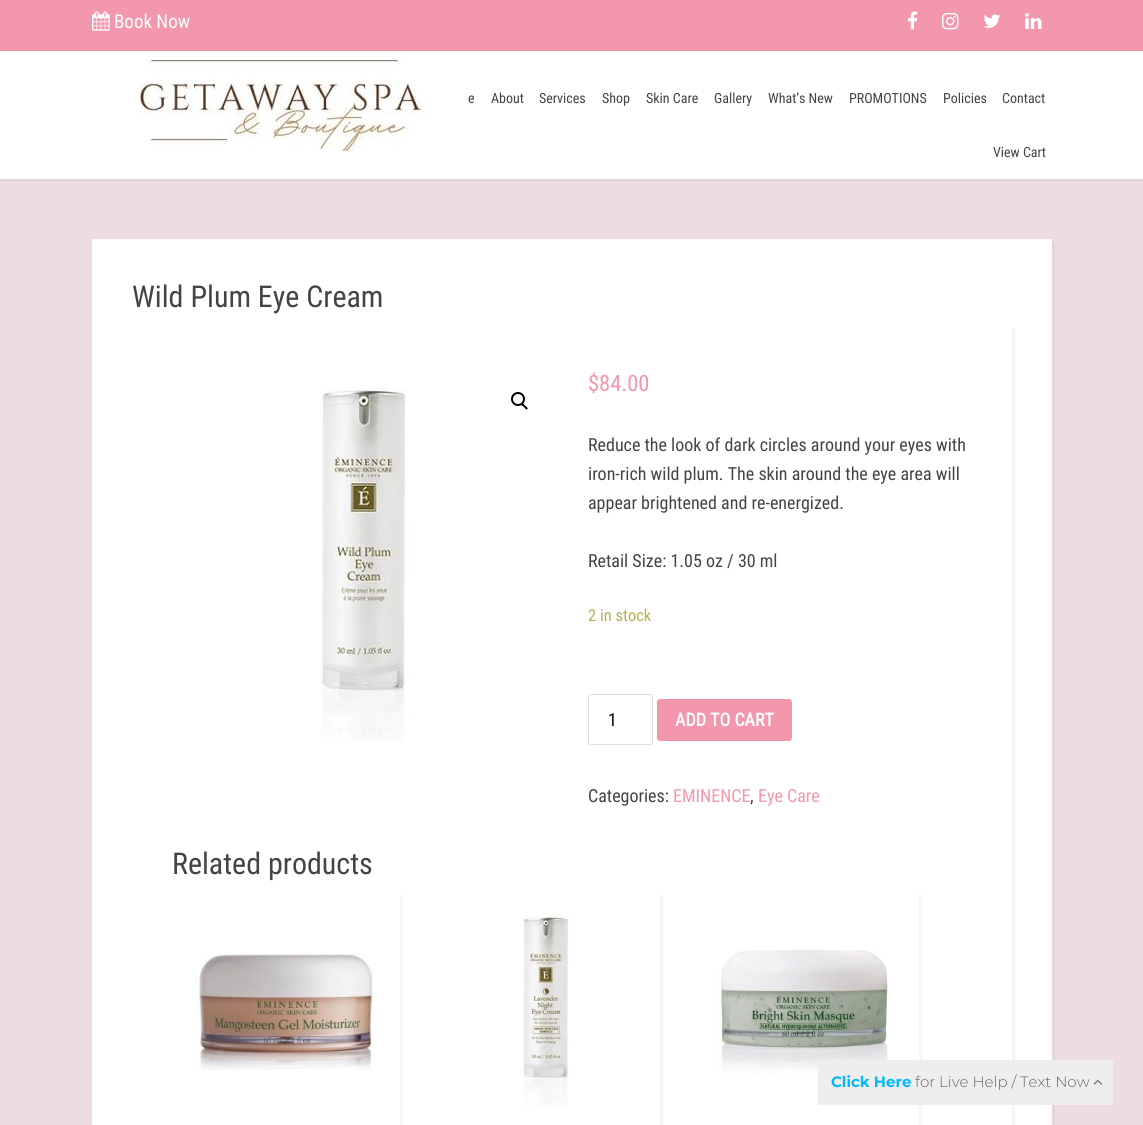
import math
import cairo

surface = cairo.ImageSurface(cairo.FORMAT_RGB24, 1143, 1125)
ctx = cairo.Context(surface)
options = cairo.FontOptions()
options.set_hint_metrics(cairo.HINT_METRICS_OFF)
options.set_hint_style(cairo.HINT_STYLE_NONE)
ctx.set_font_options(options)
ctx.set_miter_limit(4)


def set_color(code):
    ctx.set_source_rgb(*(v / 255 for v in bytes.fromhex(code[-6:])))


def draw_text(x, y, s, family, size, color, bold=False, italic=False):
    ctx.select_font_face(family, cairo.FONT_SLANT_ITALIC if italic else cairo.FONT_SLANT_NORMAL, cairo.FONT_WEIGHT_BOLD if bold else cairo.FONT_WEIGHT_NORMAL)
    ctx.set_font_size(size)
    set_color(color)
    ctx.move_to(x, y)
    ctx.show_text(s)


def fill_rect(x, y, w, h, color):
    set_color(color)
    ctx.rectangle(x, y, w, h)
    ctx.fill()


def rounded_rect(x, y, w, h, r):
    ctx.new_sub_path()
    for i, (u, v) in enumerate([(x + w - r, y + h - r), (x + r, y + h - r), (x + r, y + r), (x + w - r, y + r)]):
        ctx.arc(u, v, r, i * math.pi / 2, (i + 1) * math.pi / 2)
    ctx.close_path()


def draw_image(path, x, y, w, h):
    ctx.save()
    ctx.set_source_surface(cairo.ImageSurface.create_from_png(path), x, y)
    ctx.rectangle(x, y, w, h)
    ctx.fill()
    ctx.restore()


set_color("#eddce2")
ctx.paint()
fill_rect(0, 0, 1143, 51, "#f398ac")
draw_image("assets/img1.png", 92, 11, 18, 20)
draw_text(114, 28, "Book Now", "Roboto Condensed", 19, "#ffffff")
draw_image("assets/img2.png", 908, 11, 10, 19)
draw_image("assets/img3.png", 942, 12, 17, 18)
draw_image("assets/img4.png", 983, 14, 18, 14)
draw_image("assets/img5.png", 1025, 13, 17, 16)
fill_rect(0, 179, 1143, 3, "#e5d5da")
fill_rect(0, 51, 1143, 128, "#ffffff")
draw_image("assets/img6.png", 139, 57, 289, 94)
draw_text(468, 103, "e", "Roboto Condensed", 14, "#444444")
draw_text(491, 103, "About", "Roboto Condensed", 14, "#444444")
draw_text(539, 103, "Services", "Roboto Condensed", 14, "#444444")
draw_text(602, 103, "Shop", "Roboto Condensed", 14, "#444444")
draw_text(646, 103, "Skin Care", "Roboto Condensed", 14, "#444444")
draw_text(714, 103, "Gallery", "Roboto Condensed", 14, "#444444")
draw_text(768, 103, "What’s New", "Roboto Condensed", 14, "#444444")
draw_text(849, 103, "PROMOTIONS", "Roboto Condensed", 14, "#444444")
draw_text(943, 103, "Policies", "Roboto Condensed", 14, "#444444")
draw_text(1002, 103, "Contact", "Roboto Condensed", 14, "#444444")
draw_text(993, 157, "View Cart", "Roboto Condensed", 14, "#444444")
set_color("#e5d5da")
ctx.new_path()
ctx.move_to(95, 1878)
ctx.line_to(95, 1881)
ctx.line_to(1055, 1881)
ctx.line_to(1055, 242)
ctx.line_to(1052, 242)
ctx.line_to(1052, 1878)
ctx.close_path()
ctx.fill()
fill_rect(92, 239, 960, 886, "#ffffff")
draw_text(132, 307, "Wild Plum Eye Cream", "Roboto Condensed", 30, "#444444")
set_color("#f6f6f6")
ctx.new_path()
ctx.move_to(135, 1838)
ctx.line_to(135, 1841)
ctx.line_to(1015, 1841)
ctx.line_to(1015, 328)
ctx.line_to(1012, 328)
ctx.line_to(1012, 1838)
ctx.close_path()
ctx.fill()
draw_image("assets/img7.png", 320, 388, 89, 354)
ctx.arc(518, 399, 6, 0, 2 * math.pi)
set_color("#000000")
ctx.stroke()
ctx.new_path()
ctx.move_to(521.5, 403.5)
ctx.curve_to(523, 402.5, 524.5, 405, 525, 405.5)
ctx.curve_to(526, 406.5, 528.5, 408, 527.5, 409)
ctx.curve_to(526, 410.5, 524.5, 407.5, 524, 407)
ctx.curve_to(523, 406.5, 520.5, 405, 521.5, 403.5)
ctx.close_path()
ctx.fill()
draw_text(588, 391, "$84.00", "Roboto Condensed", 22.5, "#f398ac")
draw_text(588, 451, "Reduce the look of dark circles around your eyes with", "Roboto Condensed", 18, "#444444")
draw_text(588, 480, "iron-rich wild plum. The skin around the eye area will", "Roboto Condensed", 18, "#444444")
draw_text(588, 509, "appear brightened and re-energized.", "Roboto Condensed", 18, "#444444")
draw_text(588, 567, "Retail Size: 1.05 oz / 30 ml", "Roboto Condensed", 18, "#444444")
draw_text(588, 621, "2 in stock", "Roboto Condensed", 16.5, "#b3af54")
rounded_rect(588.5, 694.5, 64, 50, 2.5)
set_color("#dddddd")
ctx.set_line_width(1)
ctx.stroke()
draw_text(608, 726, "1", "Roboto Condensed", 18, "#000000")
set_color("#f398ac")
rounded_rect(657, 699, 135, 42, 3)
ctx.fill()
draw_text(675, 726, "ADD TO CART", "Roboto Condensed", 18, "#ffffff", bold=True)
draw_text(588, 802, "Categories:", "Roboto Condensed", 18, "#444444")
draw_text(673, 802, "EMINENCE", "Roboto Condensed", 18, "#f398ac")
draw_text(750, 802, ",", "Roboto Condensed", 18, "#444444")
draw_text(758, 802, "Eye Care", "Roboto Condensed", 18, "#f398ac")
draw_text(172, 874, "Related products", "Roboto Condensed", 30, "#444444")
set_color("#f6f6f6")
ctx.new_path()
ctx.move_to(175, 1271)
ctx.line_to(175, 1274)
ctx.line_to(403, 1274)
ctx.line_to(403, 895)
ctx.line_to(400, 895)
ctx.line_to(400, 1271)
ctx.close_path()
ctx.fill()
draw_image("assets/img8.png", 195, 953, 180, 117)
ctx.new_path()
ctx.move_to(434, 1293)
ctx.line_to(434, 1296)
ctx.line_to(663, 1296)
ctx.line_to(663, 895)
ctx.line_to(660, 895)
ctx.line_to(660, 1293)
ctx.close_path()
ctx.fill()
draw_image("assets/img9.png", 523, 915, 46, 192)
ctx.new_path()
ctx.move_to(693, 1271)
ctx.line_to(693, 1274)
ctx.line_to(922, 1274)
ctx.line_to(922, 895)
ctx.line_to(919, 895)
ctx.line_to(919, 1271)
ctx.close_path()
ctx.fill()
draw_image("assets/img10.png", 718, 949, 170, 125)
fill_rect(818, 1060, 295, 45, "#eeeeee")
draw_text(831, 1087, "Click Here", "Montserrat", 15, "#00b8fd", bold=True)
draw_text(915, 1087, "for Live Help / Text Now", "Montserrat Light", 15, "#666666")
draw_image("assets/img11.png", 1093, 1079, 9, 6)
surface.write_to_png("output.png")
